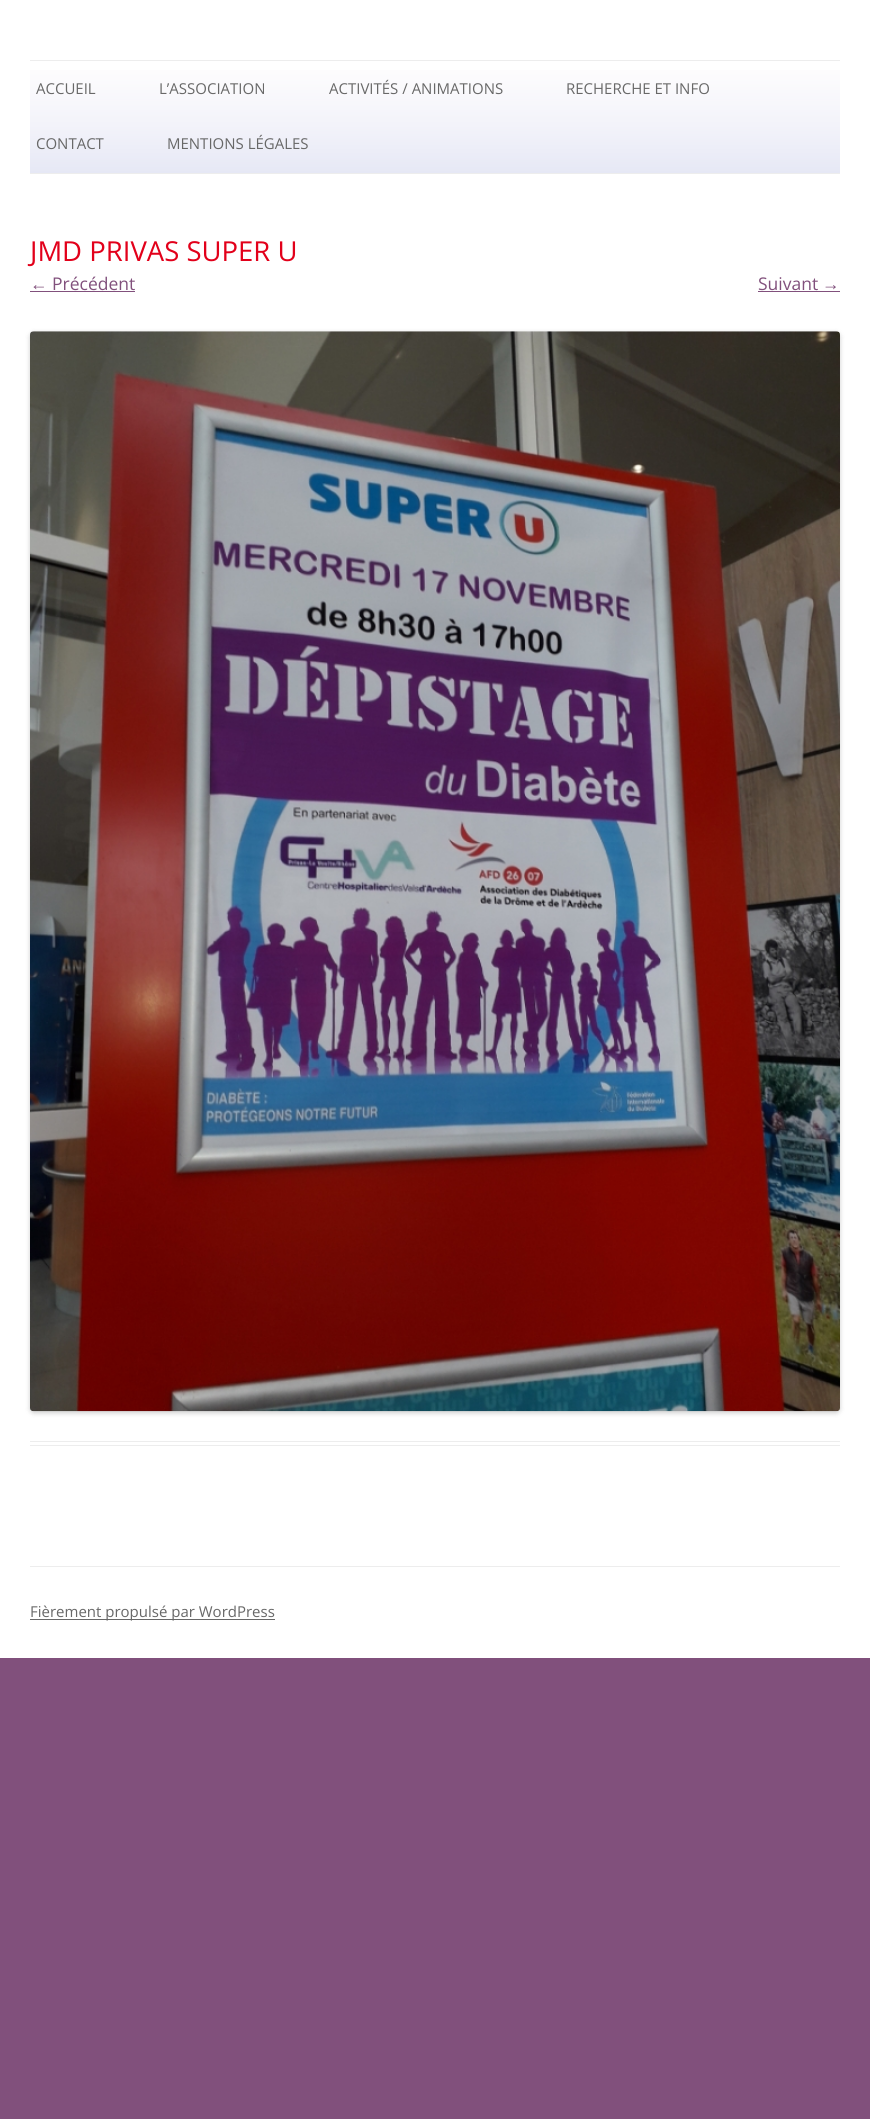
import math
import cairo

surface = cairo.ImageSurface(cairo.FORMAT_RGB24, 870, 2119)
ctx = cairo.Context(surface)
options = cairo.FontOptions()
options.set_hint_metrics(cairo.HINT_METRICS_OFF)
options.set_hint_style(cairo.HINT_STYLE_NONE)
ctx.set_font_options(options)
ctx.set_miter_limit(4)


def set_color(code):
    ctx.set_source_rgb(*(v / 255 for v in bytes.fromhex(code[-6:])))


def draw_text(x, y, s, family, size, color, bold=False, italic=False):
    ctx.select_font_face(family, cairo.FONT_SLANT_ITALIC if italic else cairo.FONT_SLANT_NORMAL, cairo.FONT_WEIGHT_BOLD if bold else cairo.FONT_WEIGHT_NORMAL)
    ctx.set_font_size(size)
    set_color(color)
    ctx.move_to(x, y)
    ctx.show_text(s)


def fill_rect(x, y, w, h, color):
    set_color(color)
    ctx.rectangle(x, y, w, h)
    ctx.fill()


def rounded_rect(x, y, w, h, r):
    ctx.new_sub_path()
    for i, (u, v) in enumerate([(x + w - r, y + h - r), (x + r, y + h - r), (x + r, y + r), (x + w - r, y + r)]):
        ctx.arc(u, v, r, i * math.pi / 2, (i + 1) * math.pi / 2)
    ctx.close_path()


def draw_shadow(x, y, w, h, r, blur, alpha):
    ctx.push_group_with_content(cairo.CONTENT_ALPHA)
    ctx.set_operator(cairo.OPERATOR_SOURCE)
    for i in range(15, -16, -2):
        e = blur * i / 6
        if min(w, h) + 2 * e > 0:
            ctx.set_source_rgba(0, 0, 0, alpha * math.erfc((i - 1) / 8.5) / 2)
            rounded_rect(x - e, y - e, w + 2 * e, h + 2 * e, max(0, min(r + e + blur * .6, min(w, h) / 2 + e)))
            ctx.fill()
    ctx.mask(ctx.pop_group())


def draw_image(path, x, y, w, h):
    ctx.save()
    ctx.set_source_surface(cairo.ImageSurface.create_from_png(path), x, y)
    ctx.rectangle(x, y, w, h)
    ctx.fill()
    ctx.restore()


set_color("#81507c")
ctx.paint()
fill_rect(0, 0, 870, 1658, "#ffffff")
gradient = cairo.LinearGradient(435, 173, 435, 61)
gradient.add_color_stop_rgba(0, 0.902, 0.91, 0.961, 1)
gradient.add_color_stop_rgba(0.43, 0.953, 0.953, 0.98, 1)
gradient.add_color_stop_rgba(1, 1, 0.996, 0.996, 1)
ctx.set_source(gradient)
ctx.rectangle(30, 70, 810, 103)
ctx.fill()
fill_rect(30, 60, 810, 1, "#ededed")
fill_rect(30, 173, 810, 1, "#ededed")
draw_text(36, 94, "ACCUEIL", "Open Sans", 15, "#686868")
draw_text(159, 94, "L’ASSOCIATION", "Open Sans", 15, "#686868")
draw_text(329, 94, "ACTIVITÉS / ANIMATIONS", "Open Sans", 15, "#686868")
draw_text(566, 94, "RECHERCHE ET INFO", "Open Sans", 15, "#686868")
draw_text(36, 149, "CONTACT", "Open Sans", 15, "#686868")
draw_text(167, 149, "MENTIONS LÉGALES", "Open Sans", 15, "#686868")
fill_rect(30, 1441, 810, 1, "#ededed")
fill_rect(30, 1445, 810, 1, "#ededed")
draw_text(30, 261, "JMD PRIVAS SUPER U", "Open Sans", 27.5, "#e2001a")
draw_text(30, 290, "←", "Liberation Sans", 17.5, "#81507c")
fill_rect(30, 291, 105, 1, "#81507c")
draw_text(52, 290, "Précédent", "Open Sans", 17.5, "#81507c")
draw_text(758, 290, "Suivant", "Open Sans", 17.5, "#81507c")
draw_text(822, 290, "→", "Liberation Sans", 17.5, "#81507c")
fill_rect(758, 291, 82, 1, "#81507c")
set_color("#000000")
draw_shadow(30, 333, 810, 1080, 4, 2.5, 0.2)
draw_image("assets/img1.png", 30, 331, 810, 1081)
fill_rect(30, 1566, 810, 1, "#ededed")
fill_rect(30, 1619, 245, 1, "#686868")
draw_text(30, 1617, "Fièrement propulsé par WordPress", "Open Sans", 15, "#686868")
surface.write_to_png("output.png")
